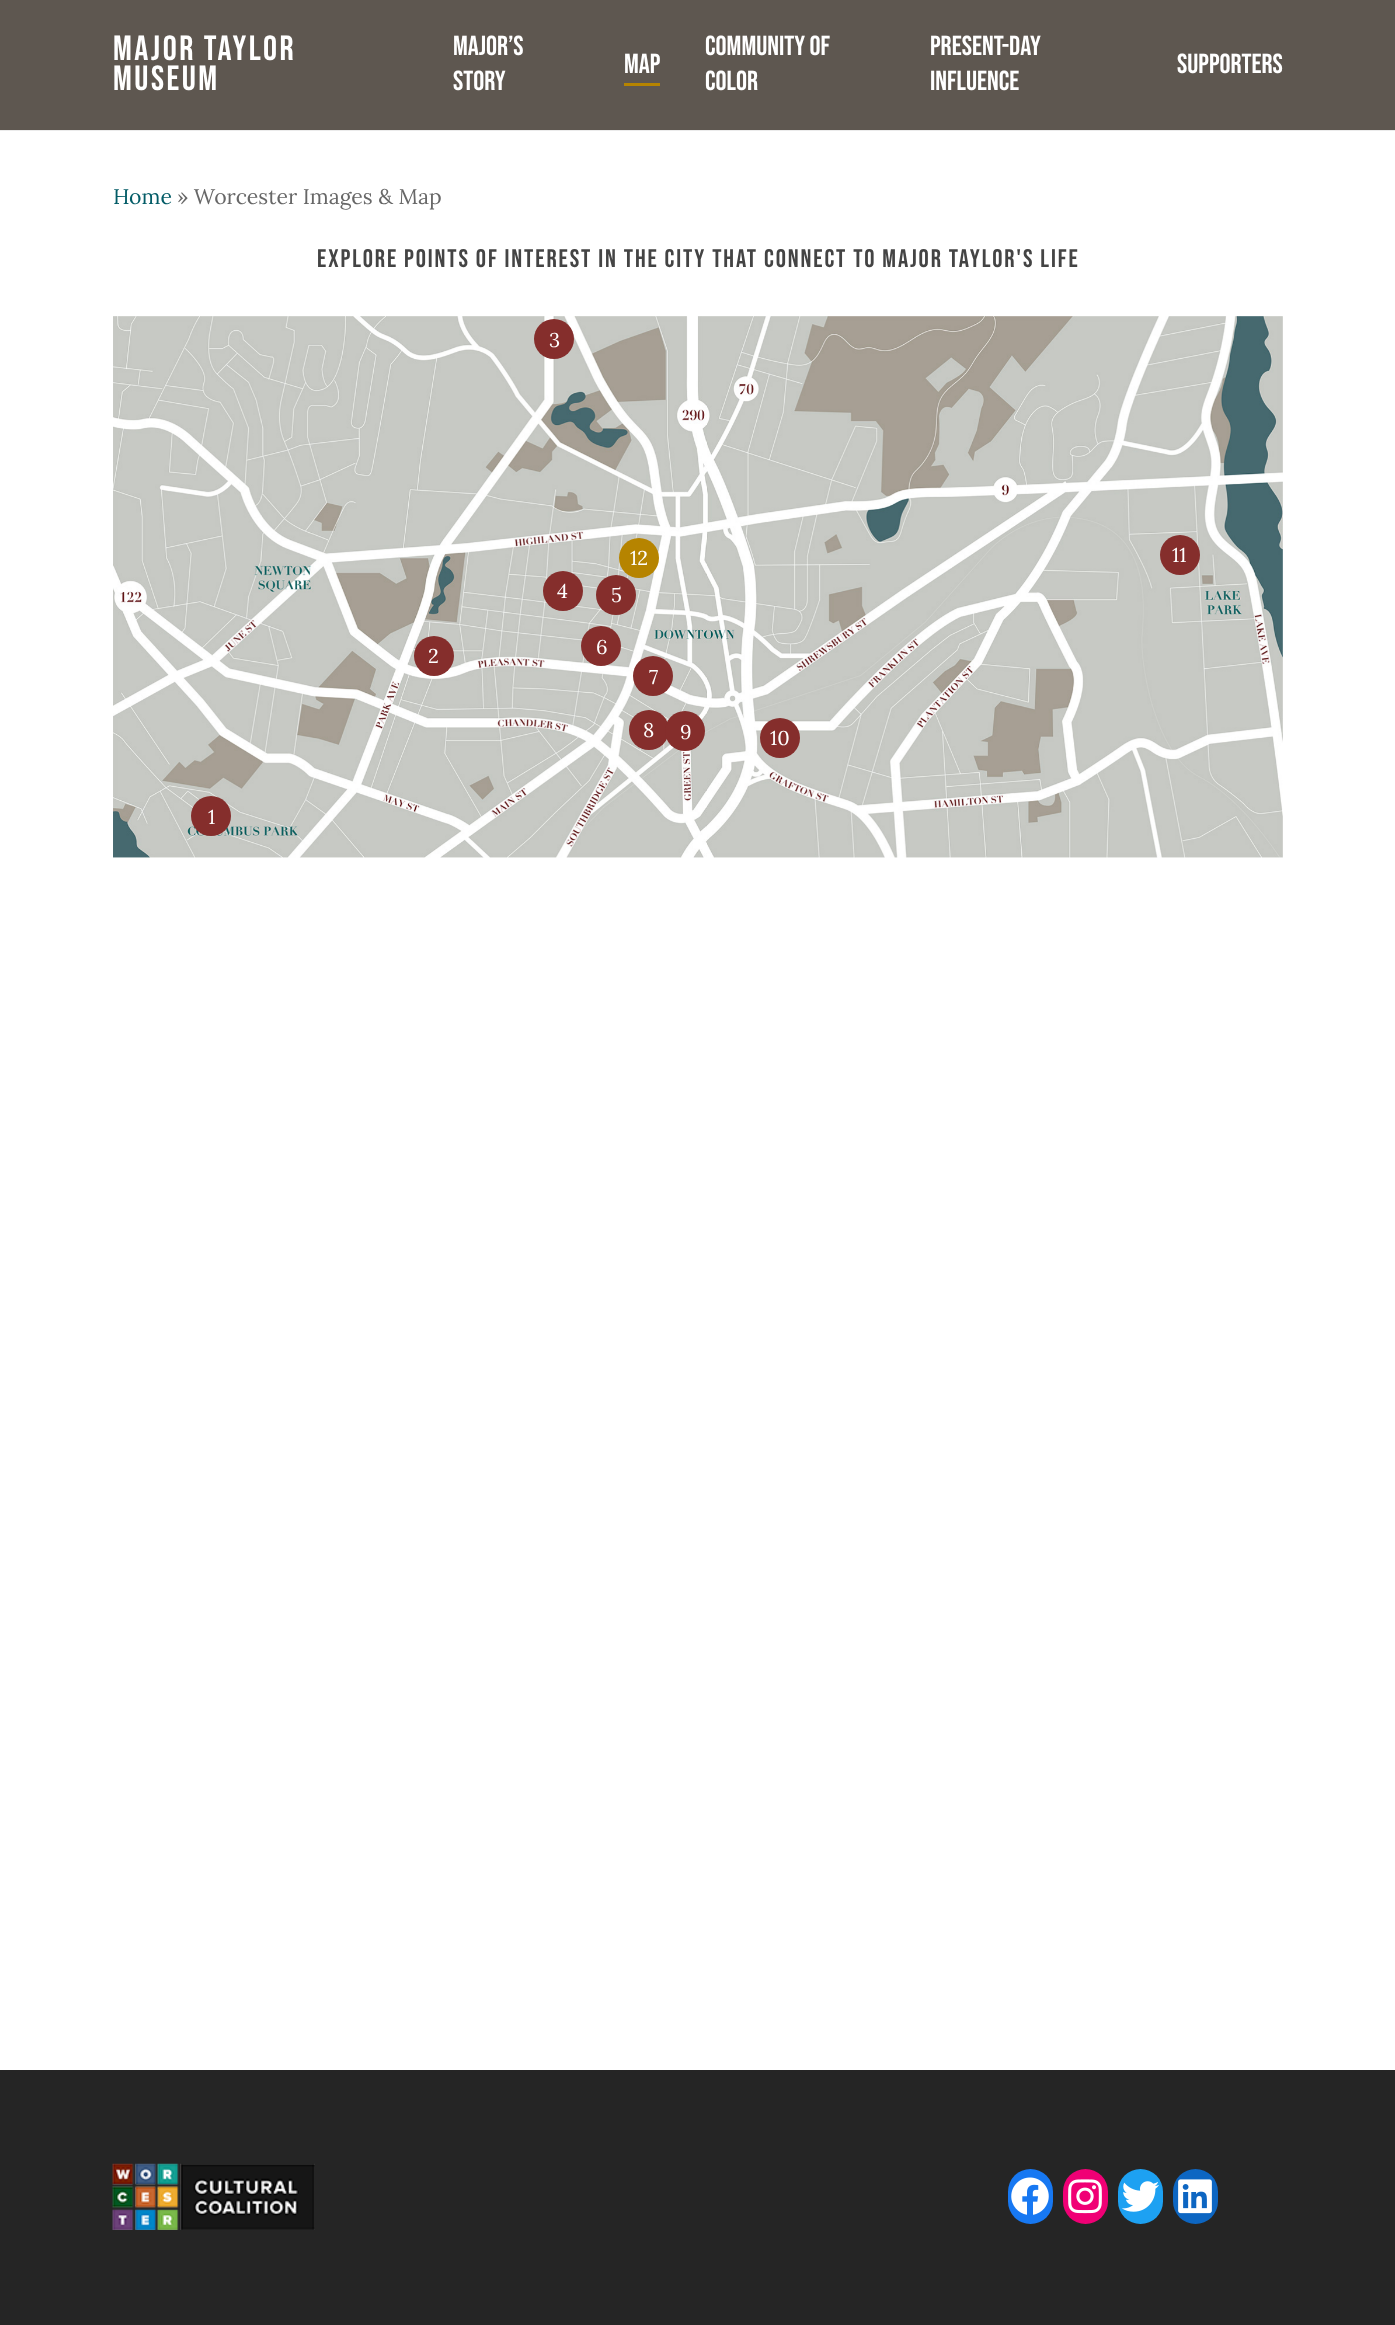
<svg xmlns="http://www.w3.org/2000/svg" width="1395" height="2325">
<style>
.a{font:35px Bebas Neue;letter-spacing:2.5px;fill:#fff}
.b{font:27.5px Bebas Neue;fill:#fff}
.c{font:21.25px Lora;fill:#035c67}
.d{font:21.25px Lora;fill:#676767}
.e{font:25.5px Bebas Neue;letter-spacing:1.88px;fill:#444}
.f{font:20px Lora;fill:#fff}
</style>
<rect width="100%" height="100%" fill="#fff"/>
<path fill="#5e5750" d="M0 0h1395v130H0z"/>
<path fill="#ebebeb" d="M0 130h1395v1H0z"/>
<path fill="#b68400" d="M624 83h36v3H624z"/>
<image href="1.png" x="113" y="316" width="1170" height="542"/>
<circle fill="#852e2c" cx="554" cy="339" r="20"/>
<circle fill="#852e2c" cx="616" cy="595" r="20"/>
<circle fill="#b68400" cx="639" cy="558" r="20"/>
<circle fill="#852e2c" cx="1180" cy="555" r="20"/>
<circle fill="#852e2c" cx="563" cy="591" r="20"/>
<circle fill="#852e2c" cx="434" cy="656" r="20"/>
<circle fill="#852e2c" cx="601" cy="646" r="20"/>
<circle fill="#852e2c" cx="653" cy="676" r="20"/>
<circle fill="#852e2c" cx="649" cy="730" r="20"/>
<circle fill="#852e2c" cx="685" cy="731" r="20"/>
<circle fill="#852e2c" cx="780" cy="738" r="20"/>
<circle fill="#852e2c" cx="211" cy="816" r="20"/>
<path fill="#252525" d="M0 2070h1395v255H0z"/>
<image href="2.png" x="112" y="2163" width="203" height="67"/>
<rect fill="#1778f2" x="1008" y="2169" width="45" height="55" rx="22.5"/>
<image href="3.png" x="1011" y="2177" width="38" height="38"/>
<rect fill="#f00075" x="1063" y="2169" width="45" height="55" rx="22.5"/>
<image href="4.png" x="1068" y="2179" width="34" height="35"/>
<rect fill="#1da1f2" x="1118" y="2169" width="45" height="55" rx="22.5"/>
<image href="5.png" x="1121" y="2181" width="38" height="31"/>
<rect fill="#0d66c2" x="1173" y="2169" width="45" height="55" rx="22.5"/>
<image href="6.png" x="1178" y="2179" width="34" height="35"/>
<text class="a" x="113" y="60">MAJOR TAYLOR</text>
<text class="a" x="113" y="90">MUSEUM</text>
<text class="b" x="453" y="55">Major’s</text>
<text class="b" x="453" y="90">Story</text>
<text class="b" x="624" y="73">Map</text>
<text class="b" x="705" y="55">Community of</text>
<text class="b" x="705" y="90">Color</text>
<text class="b" x="930" y="55">Present-day</text>
<text class="b" x="930" y="90">Influence</text>
<text class="b" x="1177" y="73">Supporters</text>
<text class="c" x="113" y="204">Home</text>
<text class="d" x="177" y="204">» Worcester Images &amp; Map</text>
<text class="e" x="317" y="267">EXPLORE POINTS OF INTEREST IN THE CITY THAT CONNECT TO MAJOR TAYLOR'S LIFE</text>
<text class="f" x="549" y="347">3</text>
<text class="f" x="630" y="565">12</text>
<text class="f" x="1172" y="562">11</text>
<text class="f" x="557" y="598">4</text>
<text class="f" x="611" y="602">5</text>
<text class="f" x="428" y="663">2</text>
<text class="f" x="596" y="654">6</text>
<text class="f" x="649" y="684">7</text>
<text class="f" x="643" y="737">8</text>
<text class="f" x="680" y="739">9</text>
<text class="f" x="770" y="745">10</text>
<text class="f" x="208" y="824">1</text>
</svg>
